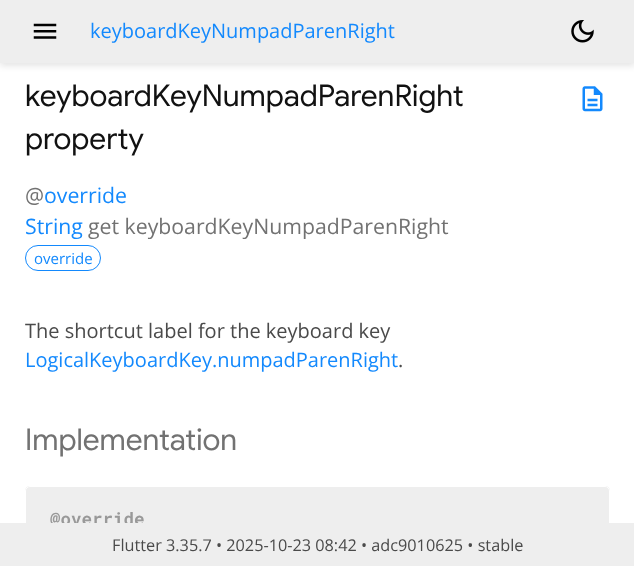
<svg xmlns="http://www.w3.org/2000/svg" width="634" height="566">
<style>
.a{font:20px Open Sans;fill:#1389fd}
.b{font:30px Google Sans;fill:#111}
.c{font:21.25px Open Sans;fill:#727272}
.d{font:21.25px Open Sans;fill:#1389fd}
.e{font:15px Open Sans;fill:#1389fd}
.f{font:20px Open Sans;fill:#4a4a4a}
.g{font:30px Google Sans;fill:#727272}
.h{font:bold 17.5px Roboto Mono;fill:#999}
.i{font:16.25px Open Sans;fill:#4a4a4a}
</style>
<defs>
<clipPath id="clip1"><path d="M0 63h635v460H0z"/></clipPath>
</defs>
<rect width="100%" height="100%" fill="#fff"/>
<path fill="#0000001a" filter="blur(3px)" d="M0 4h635v62H0z"/>
<path fill="#eee" d="M0 0h634v63H0z"/>
<image href="1.png" x="33" y="23" width="24" height="16"/>
<image href="2.png" x="571" y="20" width="23" height="23"/>
<image href="3.png" x="582" y="86" width="21" height="26"/>
<rect fill="none" stroke="#1389fd" x="25.5" y="245.5" width="75" height="25" rx="12.5"/>
<path fill="#eee" d="M30 486h575c3 0 5 2 5 5v32h-585v-32c0-3 2-5 5-5z"/>
<path fill="#eee" d="M0 523h634v43H0z"/>
<g clip-path="url(#clip1)">
<rect fill="none" stroke="#fff" x="25.5" y="486.5" width="584" height="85" rx="4.5"/>
</g>
<text class="a" x="90" y="38">keyboardKeyNumpadParenRight</text>
<text class="b" x="25" y="106">keyboardKeyNumpadParenRight</text>
<text class="b" x="25" y="149">property</text>
<text class="c" x="25" y="203">@</text>
<text class="d" x="44" y="203">override</text>
<text class="d" x="25" y="234">String</text>
<text class="c" x="88" y="234">get keyboardKeyNumpadParenRight</text>
<text class="e" x="34" y="264">override</text>
<text class="f" x="25" y="338">The shortcut label for the keyboard key</text>
<text class="a" x="25" y="367">LogicalKeyboardKey.numpadParenRight</text>
<text class="f" x="398" y="367">.</text>
<text class="g" x="25" y="450">Implementation</text>
<g clip-path="url(#clip1)">
<text class="h" x="50" y="525">@override</text>
</g>
<text class="i" x="112" y="551">Flutter 3.35.7 • 2025-10-23 08:42 • adc9010625 • stable</text>
</svg>
